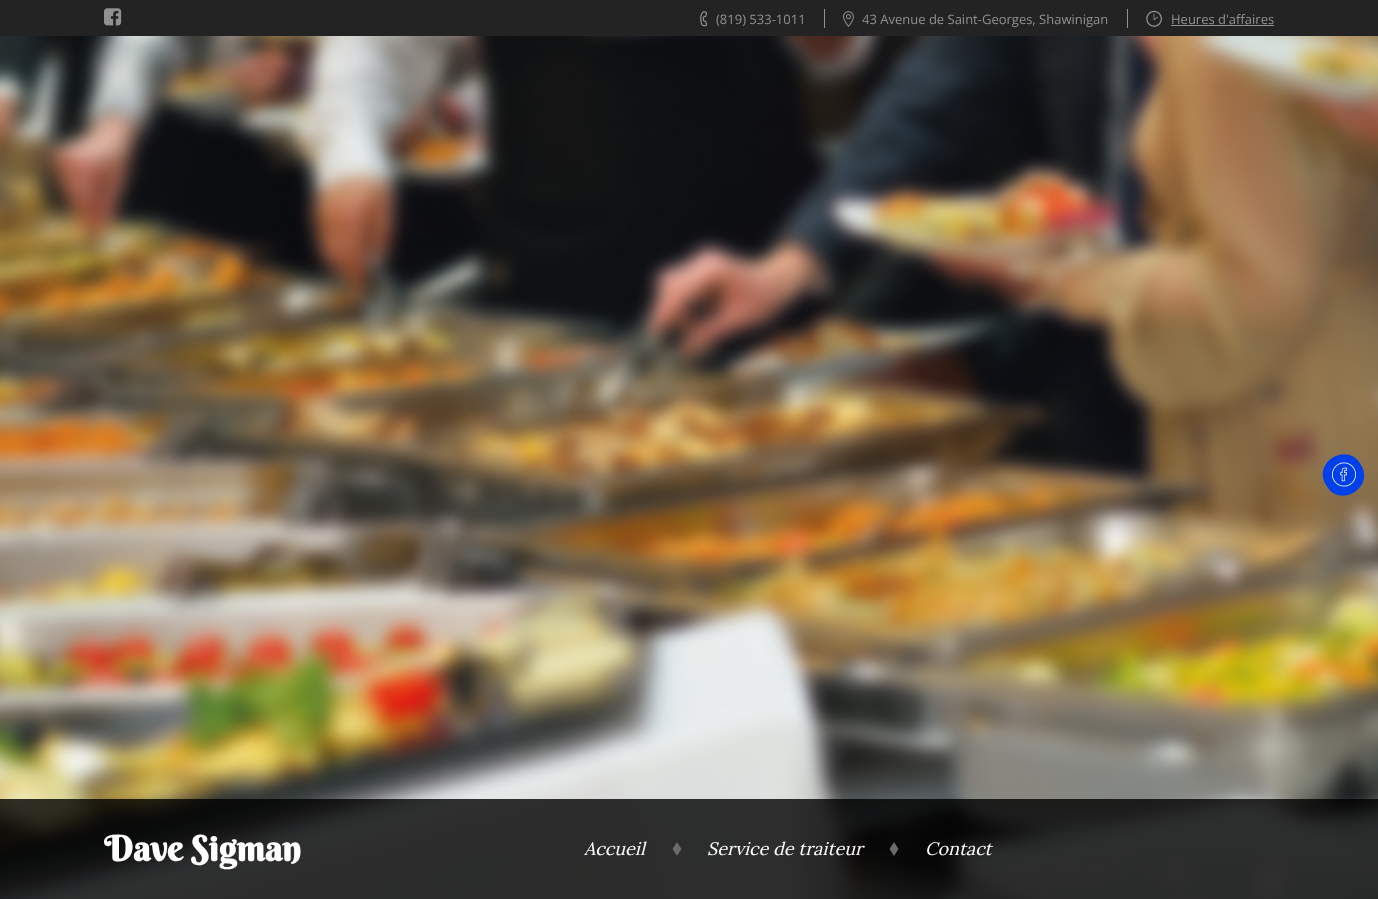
<svg xmlns="http://www.w3.org/2000/svg" width="1378" height="899">
<style>
.a{font:13px Open Sans;fill:#919191}
.b{font:bold 35px Berkshire Swash;fill:#fff}
.c{font:italic 18px Lora;fill:#fff}
</style>
<rect width="100%" height="100%" fill="#232323"/>
<image href="1.png" x="104" y="8" width="18" height="18"/>
<image href="2.png" x="700" y="11" width="8" height="16"/>
<path fill="#919191" d="M824 9h1v19H824z"/>
<image href="3.png" x="843" y="11" width="11" height="16"/>
<path fill="#919191" d="M1127 9h1v19H1127z"/>
<image href="4.png" x="1146" y="10" width="16" height="17"/>
<path fill="#919191" d="M1171 25h103v1H1171z"/>
<image href="5.png" x="0" y="36" width="1378" height="863"/>
<path fill="#000000cc" d="M0 799h1378v100H0z"/>
<path fill="#6b6b6b" d="M677 842l-4.5 7l4.5 7l4.5-7z"/>
<path fill="#6b6b6b" d="M894 842l-4.5 7l4.5 7l4.5-7z"/>
<path fill="#0040eb" d="M1361 465c14 23-22 44-35 20c-14-23 22-44 35-20z"/>
<image href="6.png" x="1332" y="462" width="24" height="25"/>
<text class="a" x="716" y="24">(819) 533-1011</text>
<text class="a" x="862" y="24">43 Avenue de Saint-Georges, Shawinigan</text>
<text class="a" x="1171" y="24">Heures d'affaires</text>
<text class="b" x="104" y="861">Dave Sigman</text>
<text class="c" x="584" y="855">Accueil</text>
<text class="c" x="707" y="855">Service de traiteur</text>
<text class="c" x="925" y="855">Contact</text>
</svg>
